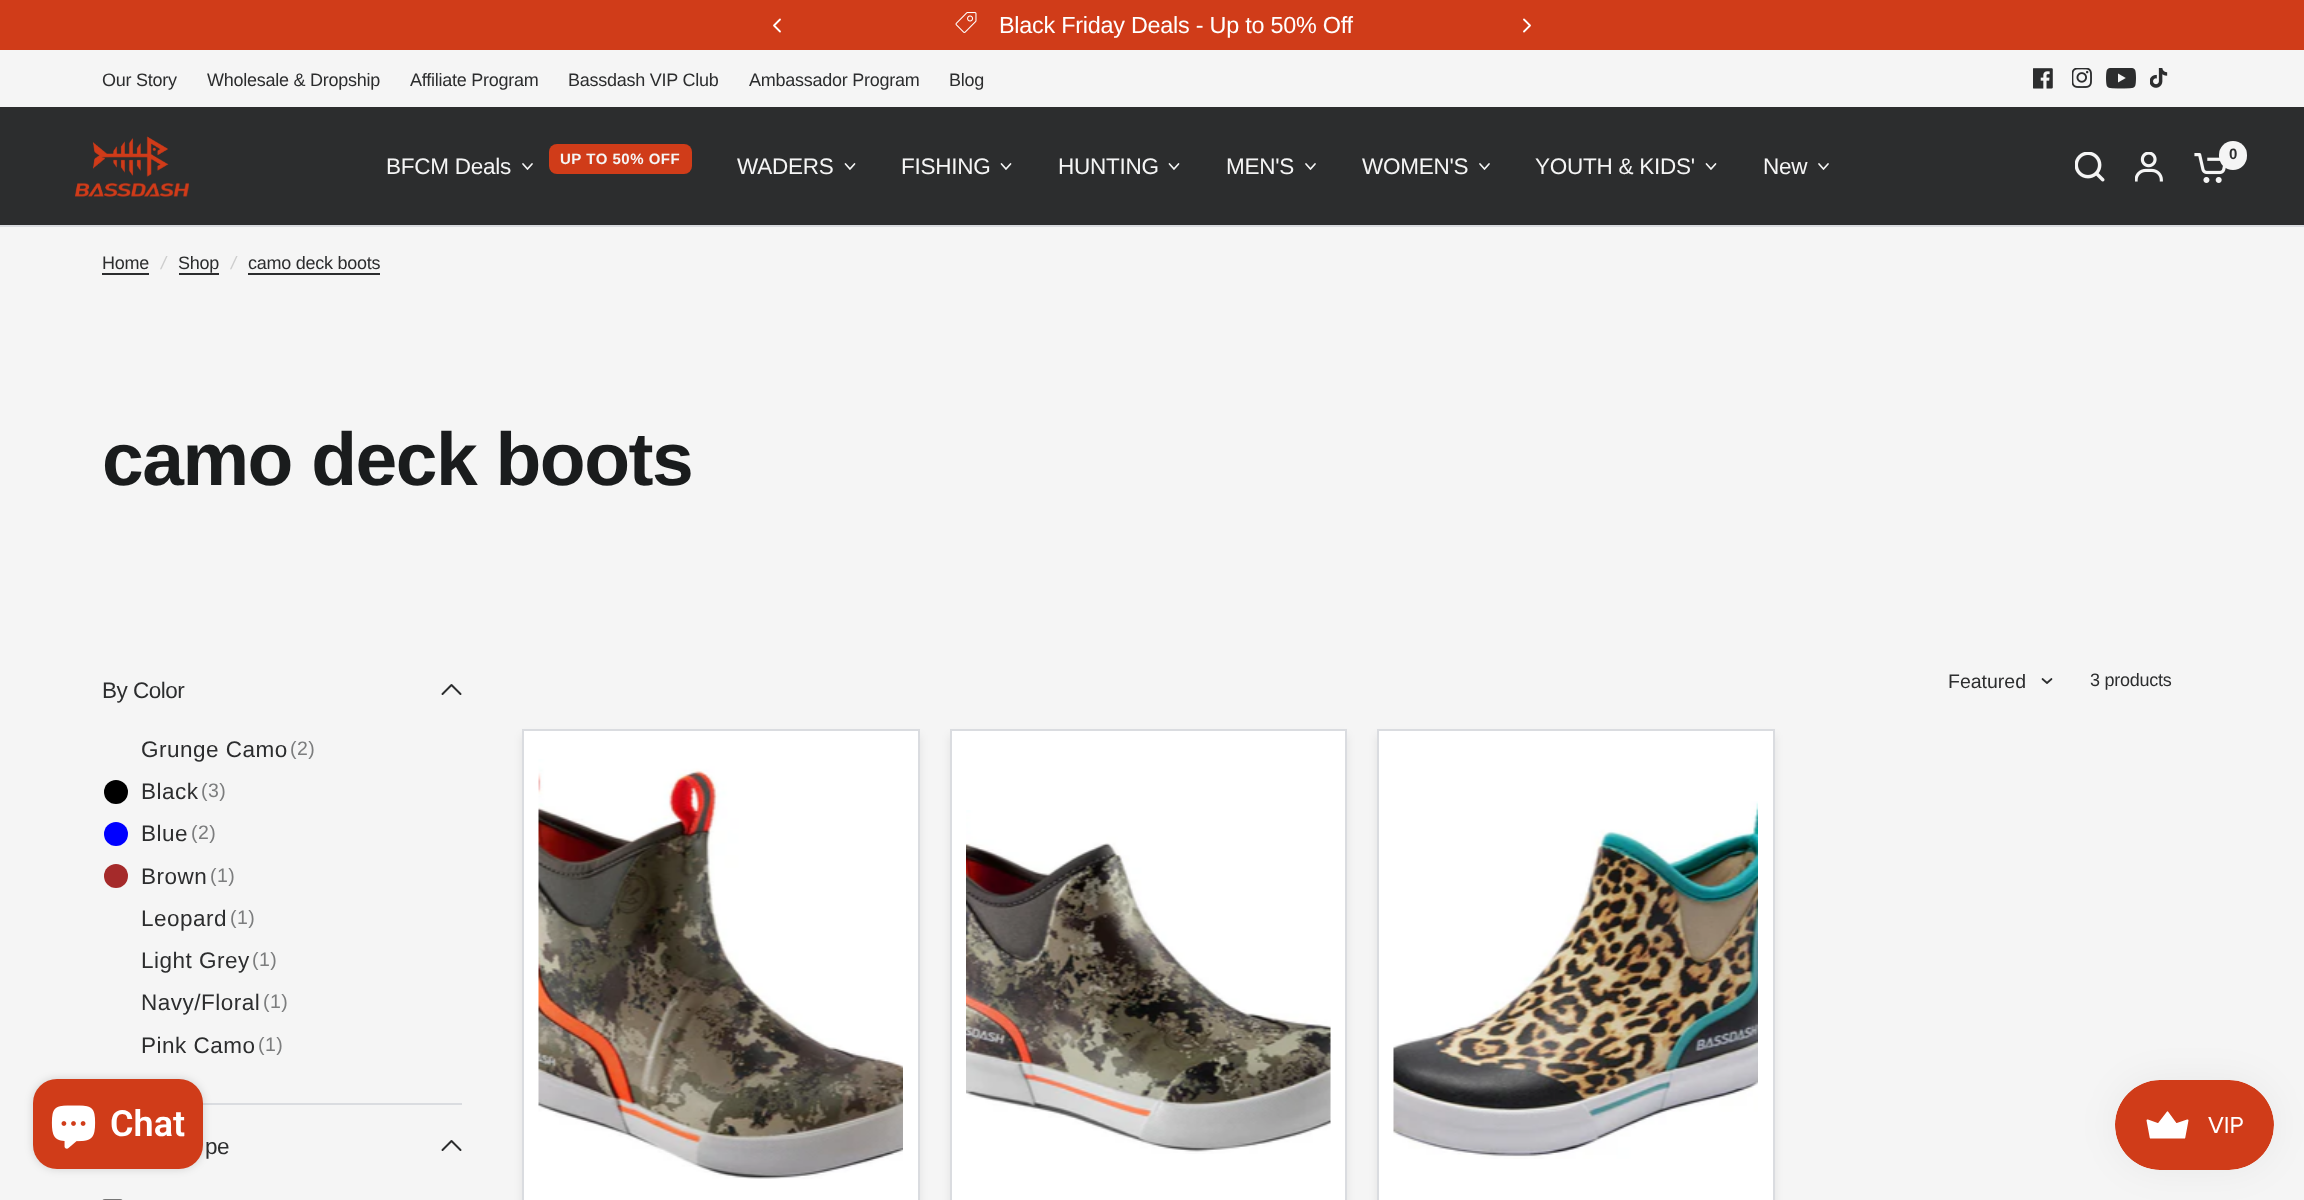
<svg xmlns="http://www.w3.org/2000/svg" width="2304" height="1200">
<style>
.a{font:23.4px Liberation Sans;letter-spacing:-0.25px;fill:#fff}
.b{font:18px Liberation Sans;letter-spacing:-0.25px;fill:#2c2d2e}
.c{font:22.5px Liberation Sans;letter-spacing:-0.25px;fill:#f5f5f5}
.d{font:bold 15px Liberation Sans;letter-spacing:0.5px;fill:#f5f5f5}
.e{font:bold 15px Liberation Sans;letter-spacing:-0.25px;fill:#2c2d2e}
.f{font:italic 18px Liberation Sans;letter-spacing:-0.25px;fill:#cdcdcd}
.g{font:bold 75px Liberation Sans;letter-spacing:-1.5px;fill:#1a1c1d}
.h{font:22.5px Liberation Sans;letter-spacing:-0.5px;fill:#2c2d2e}
.i{font:22.5px Liberation Sans;letter-spacing:0.5px;fill:#2c2d2e}
.j{font:19.5px Liberation Sans;letter-spacing:0.5px;fill:#7c7d7e}
.k{font:19.5px Liberation Sans;fill:#2c2d2e}
.l{font:600 36px Roboto;fill:#fff}
</style>
<rect width="100%" height="100%" fill="#f5f5f5"/>
<path fill="#d03c19" d="M0 0h2304v50H0z"/>
<path fill="none" stroke="#fff" stroke-width="1.8" stroke-linecap="round" stroke-linejoin="round" d="M780 19.5l-6 6l6 6"/>
<image href="1.png" x="955" y="12" width="22" height="21"/>
<path fill="none" stroke="#fff" stroke-width="1.8" stroke-linecap="round" stroke-linejoin="round" d="M1524 19.5l6 6l-6 6"/>
<image href="2.png" x="2033" y="68" width="20" height="21"/>
<image href="3.png" x="2072" y="68" width="20" height="20"/>
<image href="4.png" x="2106" y="68" width="30" height="21"/>
<image href="5.png" x="2150" y="68" width="18" height="20"/>
<path fill="#2c2d2e" d="M0 107h2304v118H0z"/>
<image href="6.png" x="75" y="136" width="114" height="61"/>
<path fill="none" stroke="#f5f5f5" stroke-width="1.7" stroke-linecap="round" stroke-linejoin="round" d="M532 164l-4.5 5l-4.5-5"/>
<rect fill="#d03c19" x="549" y="144" width="143" height="30" rx="8"/>
<path fill="none" stroke="#f5f5f5" stroke-width="1.7" stroke-linecap="round" stroke-linejoin="round" d="M854.5 164l-4.5 5l-4.5-5"/>
<path fill="none" stroke="#f5f5f5" stroke-width="1.7" stroke-linecap="round" stroke-linejoin="round" d="M1010.5 164l-4.5 5l-4.5-5"/>
<path fill="none" stroke="#f5f5f5" stroke-width="1.7" stroke-linecap="round" stroke-linejoin="round" d="M1178.5 164l-4.5 5l-4.5-5"/>
<path fill="none" stroke="#f5f5f5" stroke-width="1.7" stroke-linecap="round" stroke-linejoin="round" d="M1315 164l-4.5 5l-4.5-5"/>
<path fill="none" stroke="#f5f5f5" stroke-width="1.7" stroke-linecap="round" stroke-linejoin="round" d="M1489 164l-4.5 5l-4.5-5"/>
<path fill="none" stroke="#f5f5f5" stroke-width="1.7" stroke-linecap="round" stroke-linejoin="round" d="M1715.5 164l-4.5 5l-4.5-5"/>
<path fill="none" stroke="#f5f5f5" stroke-width="1.7" stroke-linecap="round" stroke-linejoin="round" d="M1828 164l-4.5 5l-4.5-5"/>
<image href="7.png" x="2075" y="152" width="30" height="30"/>
<image href="8.png" x="2135" y="152" width="28" height="30"/>
<image href="9.png" x="2194" y="153" width="32" height="30"/>
<rect fill="#f5f5f5" x="2219" y="141" width="28" height="29" rx="14"/>
<path fill="#dadce0" d="M0 225h2304v2H0z"/>
<path fill="#2c2d2e" d="M102 273h47v2H102z"/>
<path fill="#2c2d2e" d="M179 273h40v2H179z"/>
<path fill="#2c2d2e" d="M248 273h132v2H248z"/>
<path fill="#dadce0" d="M203 1103h259v2H203z"/>
<path fill="none" stroke="#2c2d2e" stroke-width="2" stroke-linecap="round" stroke-linejoin="round" d="M460.5 694l-9-9l-9 9"/>
<circle fill="#000" cx="116" cy="792" r="12"/>
<circle fill="#00f" cx="116" cy="834" r="12"/>
<circle fill="#a52a2a" cx="116" cy="876" r="12"/>
<path fill="none" stroke="#2c2d2e" stroke-width="2" stroke-linecap="round" stroke-linejoin="round" d="M460.5 1150l-9-9l-9 9"/>
<rect fill="none" stroke="#767676" stroke-width="2" x="103" y="1200" width="19" height="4" rx="2"/>
<path fill="none" stroke="#2c2d2e" stroke-width="1.7" stroke-linecap="round" stroke-linejoin="round" d="M2051.5 679l-4.5 4l-4.5-4"/>
<path fill="#00000014" filter="blur(4.5px)" d="M522 735h398v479H522z"/>
<path fill="#fff" stroke="#dadce0" stroke-width="2" d="M523 730h396v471H523z"/>
<image href="10.png" x="538" y="759" width="365" height="420"/>
<path fill="#00000014" filter="blur(4.5px)" d="M950 735h397v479H950z"/>
<path fill="#fff" stroke="#dadce0" stroke-width="2" d="M951 730h395v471H951z"/>
<image href="11.png" x="966" y="810" width="365" height="344"/>
<path fill="#00000014" filter="blur(4.5px)" d="M1377 735h398v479H1377z"/>
<path fill="#fff" stroke="#dadce0" stroke-width="2" d="M1378 730h396v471H1378z"/>
<image href="12.png" x="1393" y="801" width="365" height="358"/>
<rect fill="#00000026" filter="blur(4px)" x="33" y="1079" width="170" height="90" rx="24"/>
<rect fill="#d03c19" x="33" y="1079" width="170" height="90" rx="24"/>
<image href="13.png" x="51" y="1105" width="45" height="44"/>
<rect fill="#0000000d" filter="blur(19px)" x="2115" y="1080" width="159" height="90" rx="45"/>
<image href="14.png" x="2115" y="1080" width="159" height="90"/>
<text class="a" x="999" y="33">Black Friday Deals - Up to 50% Off</text>
<text class="b" x="102" y="86">Our Story</text>
<text class="b" x="207" y="86">Wholesale &amp; Dropship</text>
<text class="b" x="410" y="86">Affiliate Program</text>
<text class="b" x="568" y="86">Bassdash VIP Club</text>
<text class="b" x="749" y="86">Ambassador Program</text>
<text class="b" x="949" y="86">Blog</text>
<text class="c" x="386" y="174">BFCM Deals</text>
<text class="d" x="560" y="164">UP TO 50% OFF</text>
<text class="c" x="737" y="174">WADERS</text>
<text class="c" x="901" y="174">FISHING</text>
<text class="c" x="1058" y="174">HUNTING</text>
<text class="c" x="1226" y="174">MEN'S</text>
<text class="c" x="1362" y="174">WOMEN'S</text>
<text class="c" x="1535" y="174">YOUTH &amp; KIDS'</text>
<text class="c" x="1763" y="174">New</text>
<text class="e" x="2229" y="159">0</text>
<text class="b" x="102" y="269">Home</text>
<text class="f" x="161" y="269">/</text>
<text class="b" x="178" y="269">Shop</text>
<text class="f" x="231" y="269">/</text>
<text class="b" x="248" y="269">camo deck boots</text>
<text class="g" x="102" y="485">camo deck boots</text>
<text class="h" x="102" y="698">By Color</text>
<text class="i" x="141" y="757">Grunge Camo</text>
<text class="j" x="290" y="755">(2)</text>
<text class="i" x="141" y="799">Black</text>
<text class="j" x="201" y="797">(3)</text>
<text class="i" x="141" y="841">Blue</text>
<text class="j" x="191" y="839">(2)</text>
<text class="i" x="141" y="884">Brown</text>
<text class="j" x="210" y="882">(1)</text>
<text class="i" x="141" y="926">Leopard</text>
<text class="j" x="230" y="924">(1)</text>
<text class="i" x="141" y="968">Light Grey</text>
<text class="j" x="252" y="966">(1)</text>
<text class="i" x="141" y="1010">Navy/Floral</text>
<text class="j" x="263" y="1008">(1)</text>
<text class="i" x="141" y="1053">Pink Camo</text>
<text class="j" x="258" y="1051">(1)</text>
<text class="h" x="205" y="1154">pe</text>
<text class="k" x="1948" y="688">Featured</text>
<text class="b" x="2090" y="686">3 products</text>
<text class="l" x="110" y="1136">Chat</text>
</svg>
